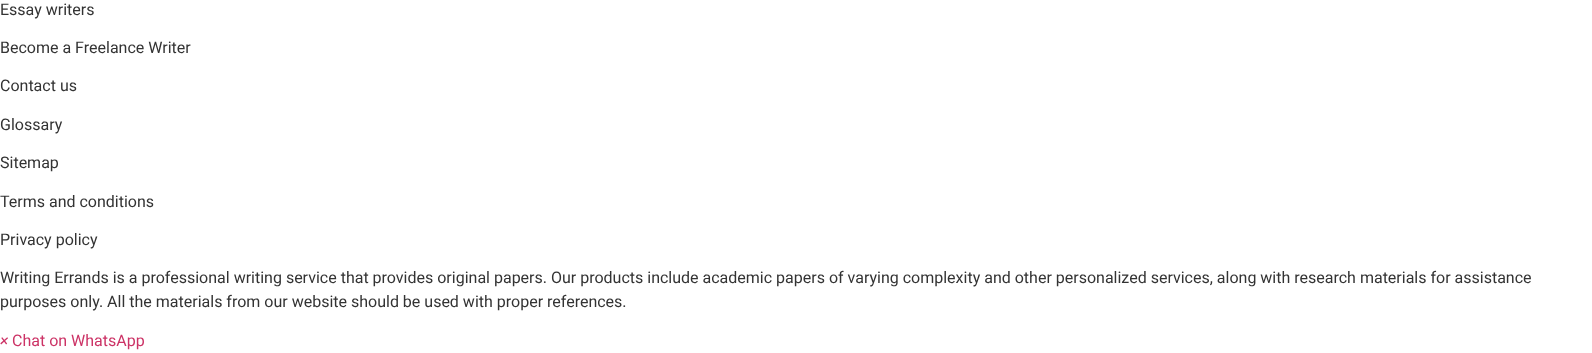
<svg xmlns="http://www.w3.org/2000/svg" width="1592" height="353">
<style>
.a{font:16px Roboto;fill:#333}
.b{font:italic 16px Roboto;fill:#c36}
.c{font:16px Roboto;fill:#c36}
</style>
<rect width="100%" height="100%" fill="#fff"/>
<text class="a" x="0" y="15">Essay writers</text>
<text class="a" x="0" y="53">Become a Freelance Writer</text>
<text class="a" x="0" y="91">Contact us</text>
<text class="a" x="0" y="130">Glossary</text>
<text class="a" x="0" y="168">Sitemap</text>
<text class="a" x="0" y="207">Terms and conditions</text>
<text class="a" x="0" y="245">Privacy policy</text>
<text class="a" x="0" y="283">Writing Errands is a professional writing service that provides original papers. Our products include academic papers of varying complexity and other personalized services, along with research materials for assistance</text>
<text class="a" x="0" y="307">purposes only. All the materials from our website should be used with proper references.</text>
<text class="b" x="0" y="346">×</text>
<text class="c" x="12" y="346">Chat on WhatsApp</text>
</svg>
